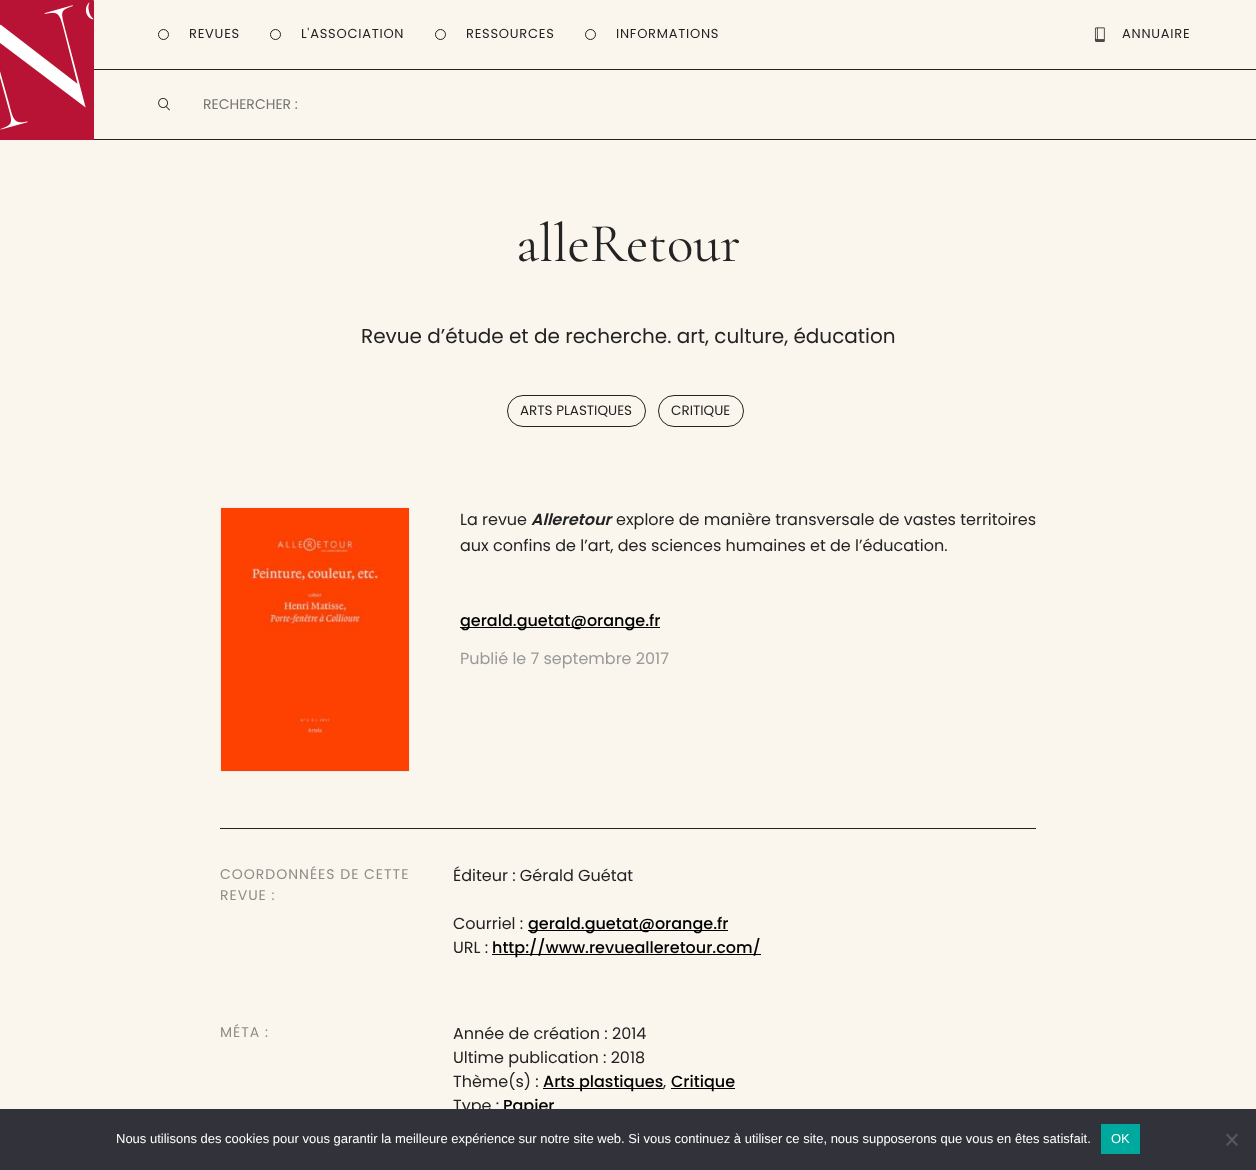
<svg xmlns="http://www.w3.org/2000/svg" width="1256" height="1170">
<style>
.a{font:13px Poppins;letter-spacing:0.75px;fill:#232323}
.b{font:14px Poppins;fill:#757575}
.c{font:300 55px Cormorant Garamond;fill:#232323}
.d{font:20px Poppins;fill:#232323}
.e{font:13.5px Poppins;fill:#232323}
.f{font:16px Poppins;fill:#232323}
.g{font:italic 600 16px Poppins;fill:#232323}
.h{font:500 16px Poppins;fill:#000}
.i{font:16px Poppins;fill:#999}
.j{font:14px Poppins;letter-spacing:1px;fill:#8f8c88}
.k{font:13px Liberation Sans;fill:#fff}
</style>
<rect width="100%" height="100%" fill="#faf5ed"/>
<path fill="#232323" d="M94 139h1162v1H94z"/>
<path fill="#232323" d="M93 69h1163v1H93z"/>
<image href="1.png" x="0" y="0" width="94" height="140"/>
<circle fill="none" stroke="#232323" cx="163.5" cy="34.5" r="5"/>
<circle fill="none" stroke="#232323" cx="275.5" cy="34.5" r="5"/>
<circle fill="none" stroke="#232323" cx="440.5" cy="34.5" r="5"/>
<circle fill="none" stroke="#232323" cx="590.5" cy="34.5" r="5"/>
<image href="2.png" x="1094" y="27" width="11" height="15"/>
<image href="3.png" x="158" y="98" width="12" height="13"/>
<rect fill="none" stroke="#232323" x="507.5" y="395.5" width="138" height="31" rx="15.5"/>
<rect fill="none" stroke="#232323" x="658.5" y="395.5" width="85" height="31" rx="15.5"/>
<path fill="none" stroke="#eee" d="M220.5 507.5h189v264H220.5z"/>
<image href="4.png" x="221" y="508" width="188" height="263"/>
<path fill="#000" d="M460 627h200v1H460z"/>
<path fill="#242424" d="M220 828h816v1H220z"/>
<path fill="#000" d="M528 930h200v1H528z"/>
<path fill="#000" d="M492 954h269v1H492z"/>
<path fill="#000" d="M543 1088h120v1H543z"/>
<path fill="#000" d="M671 1088h64v1H671z"/>
<text class="a" x="189" y="38">REVUES</text>
<text class="a" x="301" y="38">L'ASSOCIATION</text>
<text class="a" x="466" y="38">RESSOURCES</text>
<text class="a" x="616" y="38">INFORMATIONS</text>
<text class="a" x="1122" y="38">ANNUAIRE</text>
<text class="b" x="203" y="109">RECHERCHER :</text>
<text class="c" x="516" y="261">alleRetour</text>
<text class="d" x="361" y="343">Revue d’étude et de recherche. art, culture, éducation</text>
<text class="e" x="520" y="415">ARTS PLASTIQUES</text>
<text class="e" x="671" y="415">CRITIQUE</text>
<text class="f" x="460" y="525">La revue</text>
<text class="g" x="531" y="525">Alleretour</text>
<text class="f" x="616" y="525">explore de manière transversale de vastes territoires</text>
<text class="f" x="460" y="551">aux confins de l’art, des sciences humaines et de l’éducation.</text>
<text class="h" x="460" y="626">gerald.guetat@orange.fr</text>
<text class="i" x="460" y="664">Publié le 7 septembre 2017</text>
<text class="j" x="220" y="879">COORDONNÉES DE CETTE</text>
<text class="j" x="220" y="900">REVUE :</text>
<text class="f" x="453" y="881">Éditeur : Gérald Guétat</text>
<text class="f" x="453" y="929">Courriel :</text>
<text class="h" x="528" y="929">gerald.guetat@orange.fr</text>
<text class="f" x="453" y="953">URL :</text>
<text class="h" x="492" y="953">http://www.revuealleretour.com/</text>
<text class="j" x="220" y="1037">MÉTA :</text>
<text class="f" x="453" y="1039">Année de création : 2014</text>
<text class="f" x="453" y="1063">Ultime publication : 2018</text>
<text class="f" x="453" y="1087">Thème(s) :</text>
<text class="h" x="543" y="1087">Arts plastiques</text>
<text class="f" x="663" y="1087">,</text>
<text class="h" x="671" y="1087">Critique</text>
<text class="f" x="453" y="1111">Type :</text>
<text class="h" x="503" y="1111">Papier</text>
<path fill="#32323a" d="M0 1109h1256v61H0z"/>
<text class="k" x="116" y="1143">Nous utilisons des cookies pour vous garantir la meilleure expérience sur notre site web. Si vous continuez à utiliser ce site, nous supposerons que vous en êtes satisfait.</text>
<path fill="#00a99d" d="M1101 1124h39v30H1101z"/>
<text class="k" x="1111" y="1143">OK</text>
<path fill="#59595d" d="M1236.5 1133.5l1.5 1.5l-10.5 11l-1.5-1.5z"/>
<path fill="#59595d" d="M1226 1135l1.5-1.5l10.5 11l-1.5 1.5z"/>
</svg>
